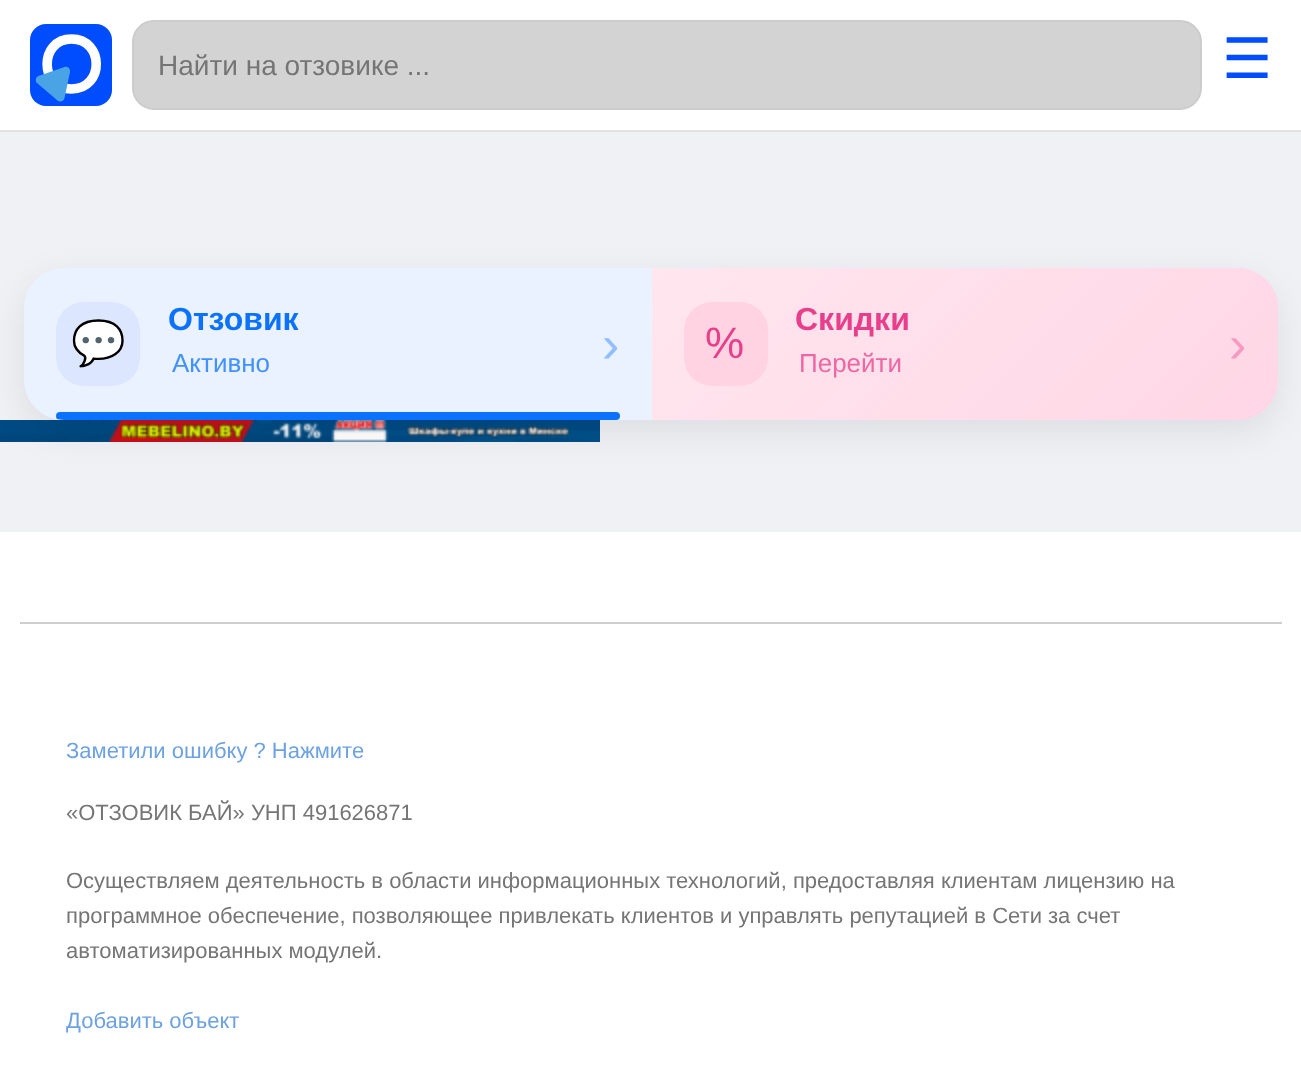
<svg xmlns="http://www.w3.org/2000/svg" width="1301" height="1068">
<style>
.a{font:28px Liberation Sans;fill:#757575}
.b{font:56px DejaVu Sans;fill:#004dff}
.c{font:44px Noto Color Emoji;fill:#0a72fd}
.d{font:bold 32px Liberation Sans;fill:#0a72fd}
.e{font:26px Liberation Sans;fill:#4292fe}
.f{font:52px Liberation Sans;fill:#90befe}
.g{font:44px Liberation Sans;fill:#e83e8c}
.h{font:bold 32px Liberation Sans;fill:#e83e8c}
.i{font:26px Liberation Sans;fill:#ee66a4}
.j{font:52px Liberation Sans;fill:#f69ac2}
.k{font:22px Liberation Sans;fill:#6da2e1}
.l{font:22px Liberation Sans;fill:#757575}
</style>
<defs>
<clipPath id="clip1"><rect x="24" y="268" width="1254" height="152" rx="40"/></clipPath>
<linearGradient id="g1" gradientUnits="userSpaceOnUse" x1="771" y1="150" x2="1160" y2="539"><stop offset="0" stop-color="#ffe6ef"/><stop offset="1" stop-color="#ffd6e5"/></linearGradient>
</defs>
<rect width="100%" height="100%" fill="#eff1f5"/>
<path fill="#fff" d="M0 0h1301v130H0z"/>
<path fill="#e1e1e1" d="M0 130h1301v2H0z"/>
<rect fill="#004dff" x="30" y="24" width="82" height="82" rx="16"/>
<path fill="none" stroke="#fff" stroke-width="9.6" d="M71.5 39c33 0 33 50 0 50c-32.5 0-32.5-50 0-50z"/>
<path fill="#4aa3e5" d="M64.5 67c3-1 6 1.5 5.5 5l-5.5 26c-.5 3.5-4.5 4.5-7 2.5l-20.5-17.5c-2-2-1.5-6 1.5-7z"/>
<rect fill="#d3d3d3" stroke="#ccc" stroke-width="2" x="133" y="21" width="1068" height="88" rx="21"/>
<image href="1.png" x="0" y="420" width="600" height="22"/>
<rect fill="#00000014" filter="blur(18px)" x="24" y="280" width="1254" height="152" rx="40"/>
<path fill="#eaf1ff" d="M64 268h588v152h-588c-22 0-40-18-40-40v-72c0-22 18-40 40-40z"/>
<rect fill="#dce7ff" x="56" y="302" width="84" height="84" rx="28"/>
<g clip-path="url(#clip1)">
<rect fill="#0a72fd" x="56" y="412" width="564" height="8" rx="4"/>
</g>
<path fill="url(#g1)" d="M652 268h586c22 0 40 18 40 40v72c0 22-18 40-40 40h-586z"/>
<rect fill="#ffd3e2" x="684" y="302" width="84" height="84" rx="28"/>
<path fill="#fff" d="M0 532h1301v536H0z"/>
<path fill="#cfcfcf" d="M20 622h1262v2H20z"/>
<text class="a" x="158" y="75">Найти на отзовике ...</text>
<text class="b" x="1222" y="78">☰</text>
<text class="c" x="71" y="358">💬</text>
<text class="d" x="168" y="330">Отзовик</text>
<text class="e" x="172" y="372">Активно</text>
<text class="f" x="602" y="362">›</text>
<text class="g" x="705" y="358">%</text>
<text class="h" x="795" y="330">Скидки</text>
<text class="i" x="799" y="372">Перейти</text>
<text class="j" x="1229" y="362">›</text>
<text class="k" x="66" y="758">Заметили ошибку ? Нажмите</text>
<text class="l" x="66" y="820">«ОТЗОВИК БАЙ» УНП 491626871</text>
<text class="l" x="66" y="888">Осуществляем деятельность в области информационных технологий, предоставляя клиентам лицензию на</text>
<text class="l" x="66" y="923">программное обеспечение, позволяющее привлекать клиентов и управлять репутацией в Сети за счет</text>
<text class="l" x="66" y="958">автоматизированных модулей.</text>
<text class="k" x="66" y="1028">Добавить объект</text>
</svg>
